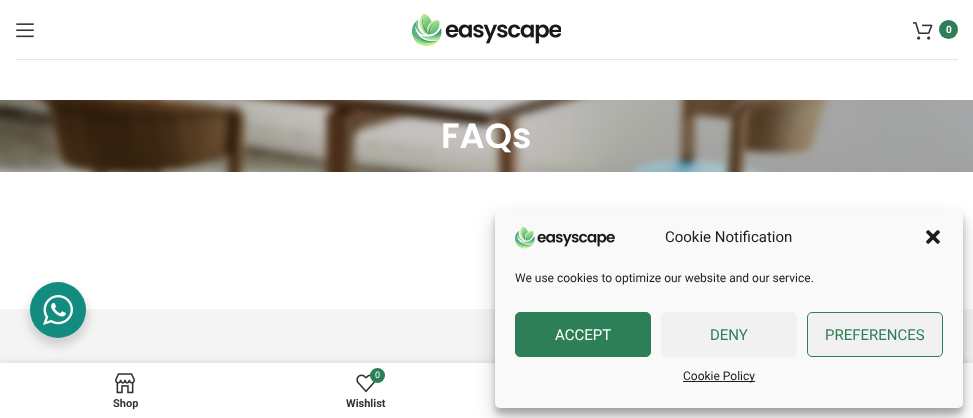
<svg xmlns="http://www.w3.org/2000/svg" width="973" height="418">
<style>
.a{font:bold 10px Roboto;fill:#fff}
.b{font:600 35px Poppins;fill:#fff}
.c{font:15px Roboto;fill:#191e23}
.d{font:12px Roboto;fill:#191e23}
.e{font:15px Roboto;fill:#fff}
.f{font:15px Roboto;fill:#2d7f58}
.g{font:bold 11px Roboto;fill:#333}
.h{font:9px Roboto;fill:#fff}
</style>
<rect width="100%" height="100%" fill="#fff"/>
<path fill="#e6e6e6" d="M15 59h943v1H15z"/>
<image href="1.png" x="16" y="23" width="18" height="15"/>
<image href="2.png" x="412" y="13" width="149" height="33"/>
<image href="3.png" x="913" y="22" width="20" height="18"/>
<circle fill="#2d7f58" cx="948.5" cy="29.5" r="9.5"/>
<image href="4.png" x="0" y="100" width="973" height="72"/>
<path fill="#f4f4f4" d="M0 309h973v54H0z"/>
<rect fill="#00000024" filter="blur(4px)" x="28" y="286" width="60" height="60" rx="30"/>
<circle fill="#128c7e" cx="58" cy="310" r="28"/>
<image href="5.png" x="43" y="295" width="30" height="30"/>
<path fill="#0000001f" filter="blur(4.5px)" d="M0 363h973v55H0z"/>
<path fill="#fff" d="M0 363h973v55H0z"/>
<rect fill="#0000003b" filter="blur(3px)" x="495" y="216" width="468" height="198" rx="5"/>
<rect fill="#00000030" filter="blur(10px)" x="495" y="220" width="468" height="198" rx="5"/>
<rect fill="#f9f9f9" x="495" y="210" width="468" height="198" rx="5"/>
<image href="6.png" x="515" y="226" width="100" height="23"/>
<image href="7.png" x="926" y="230" width="14" height="14"/>
<rect fill="#2d7f58" stroke="#2d7f58" x="515.5" y="312.5" width="135" height="44" rx="4.5"/>
<rect fill="#f1f1f1" x="661" y="312" width="136" height="45" rx="5"/>
<rect fill="#f1f1f1" stroke="#2d7f58" x="807.5" y="312.5" width="135" height="44" rx="4.5"/>
<path fill="#191e23" d="M683 381h72v1H683z"/>
<image href="8.png" x="115" y="373" width="20" height="21"/>
<image href="9.png" x="356" y="374" width="20" height="18"/>
<circle fill="#2d7f58" cx="377.5" cy="375.5" r="7.5"/>
<text class="a" x="946" y="33">0</text>
<text class="b" x="441" y="148">FAQs</text>
<text class="c" x="665" y="242">Cookie Notification</text>
<text class="d" x="515" y="282">We use cookies to optimize our website and our service.</text>
<text class="e" x="555" y="340">ACCEPT</text>
<text class="f" x="710" y="340">DENY</text>
<text class="f" x="825" y="340">PREFERENCES</text>
<text class="d" x="683" y="380">Cookie Policy</text>
<text class="g" x="113" y="407">Shop</text>
<text class="h" x="375" y="378">0</text>
<text class="g" x="346" y="407">Wishlist</text>
</svg>
